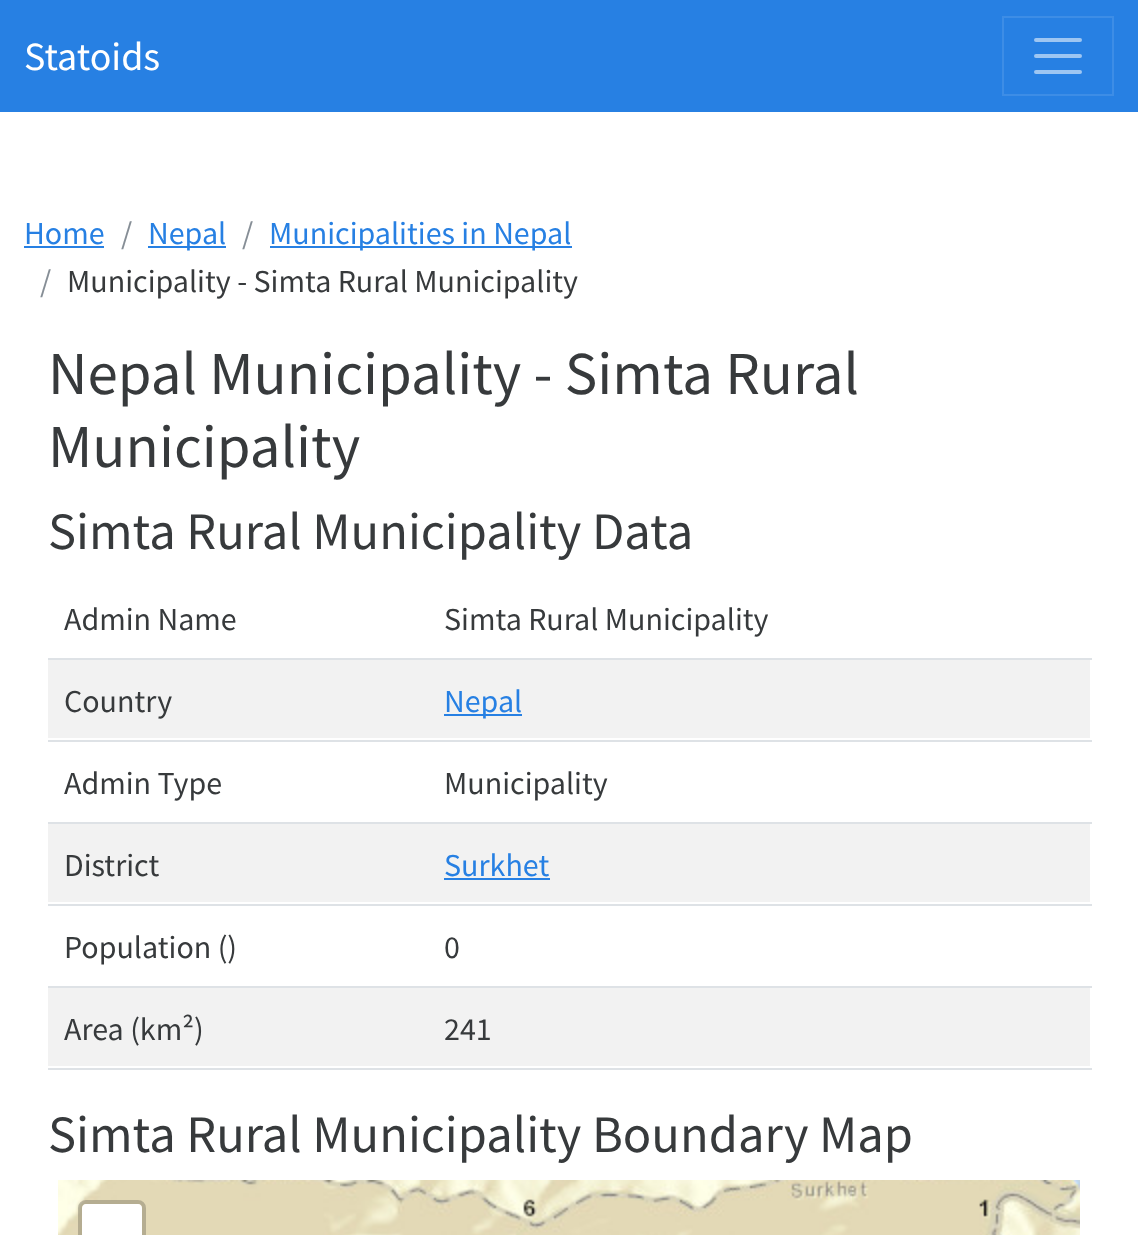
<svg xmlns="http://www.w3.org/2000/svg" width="1138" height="1235">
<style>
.a{font:40px Source Sans Pro;fill:#fff}
.b{font:32px Source Sans Pro;fill:#2780e3}
.c{font:32px Source Sans Pro;fill:#868e96}
.d{font:32px Source Sans Pro;fill:#373a3c}
.e{font:61px Source Sans Pro;fill:#373a3c}
.f{font:52.6px Source Sans Pro;fill:#373a3c}
</style>
<rect width="100%" height="100%" fill="#fff"/>
<path fill="#2780e3" d="M0 0h1138v112H0z"/>
<path fill="none" stroke="#3d8de6" stroke-width="2" d="M1003 17h110v78H1003z"/>
<path fill="none" stroke="#9ec6f2" stroke-width="4" stroke-linecap="round" d="M1036 40h44m-44 16h44m-44 16h44"/>
<path fill="#2780e3" d="M24 246h80v2H24z"/>
<path fill="#2780e3" d="M148 246h78v2H148z"/>
<path fill="#2780e3" d="M270 246h302v2H270z"/>
<path fill="#dee2e6" d="M48 658h1044v2H48z"/>
<path fill="#f2f2f2" d="M48 660h1042v78H48z"/>
<path fill="#dee2e6" d="M48 740h1044v2H48z"/>
<path fill="#2780e3" d="M444 714h78v2H444z"/>
<path fill="#dee2e6" d="M48 822h1044v2H48z"/>
<path fill="#f2f2f2" d="M48 824h1042v78H48z"/>
<path fill="#dee2e6" d="M48 904h1044v2H48z"/>
<path fill="#2780e3" d="M444 878h106v2H444z"/>
<path fill="#dee2e6" d="M48 986h1044v2H48z"/>
<path fill="#f2f2f2" d="M48 988h1042v78H48z"/>
<path fill="#dee2e6" d="M48 1068h1044v2H48z"/>
<image href="1.png" x="58" y="1180" width="282" height="55"/>
<image href="2.png" x="340" y="1180" width="512" height="55"/>
<image href="3.png" x="852" y="1180" width="228" height="55"/>
<rect fill="none" stroke="#00000033" stroke-width="4" x="80" y="1202" width="64" height="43" rx="6"/>
<path fill="#fff" d="M86 1204h52c2 0 4 2 4 4v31h-60v-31c0-2 2-4 4-4z"/>
<text class="a" x="24" y="70">Statoids</text>
<text class="b" x="24" y="244">Home</text>
<text class="c" x="121" y="244">/</text>
<text class="b" x="148" y="244">Nepal</text>
<text class="c" x="242" y="244">/</text>
<text class="b" x="269" y="244">Municipalities in Nepal</text>
<text class="c" x="40" y="292">/</text>
<text class="d" x="67" y="292">Municipality - Simta Rural Municipality</text>
<text class="e" x="48" y="394">Nepal Municipality - Simta Rural</text>
<text class="e" x="48" y="467">Municipality</text>
<text class="f" x="48" y="549">Simta Rural Municipality Data</text>
<text class="d" x="64" y="630">Admin Name</text>
<text class="d" x="444" y="630">Simta Rural Municipality</text>
<text class="d" x="64" y="712">Country</text>
<text class="b" x="444" y="712">Nepal</text>
<text class="d" x="64" y="794">Admin Type</text>
<text class="d" x="444" y="794">Municipality</text>
<text class="d" x="64" y="876">District</text>
<text class="b" x="444" y="876">Surkhet</text>
<text class="d" x="64" y="958">Population ()</text>
<text class="d" x="444" y="958">0</text>
<text class="d" x="64" y="1040">Area (km²)</text>
<text class="d" x="444" y="1040">241</text>
<text class="f" x="48" y="1152">Simta Rural Municipality Boundary Map</text>
</svg>
